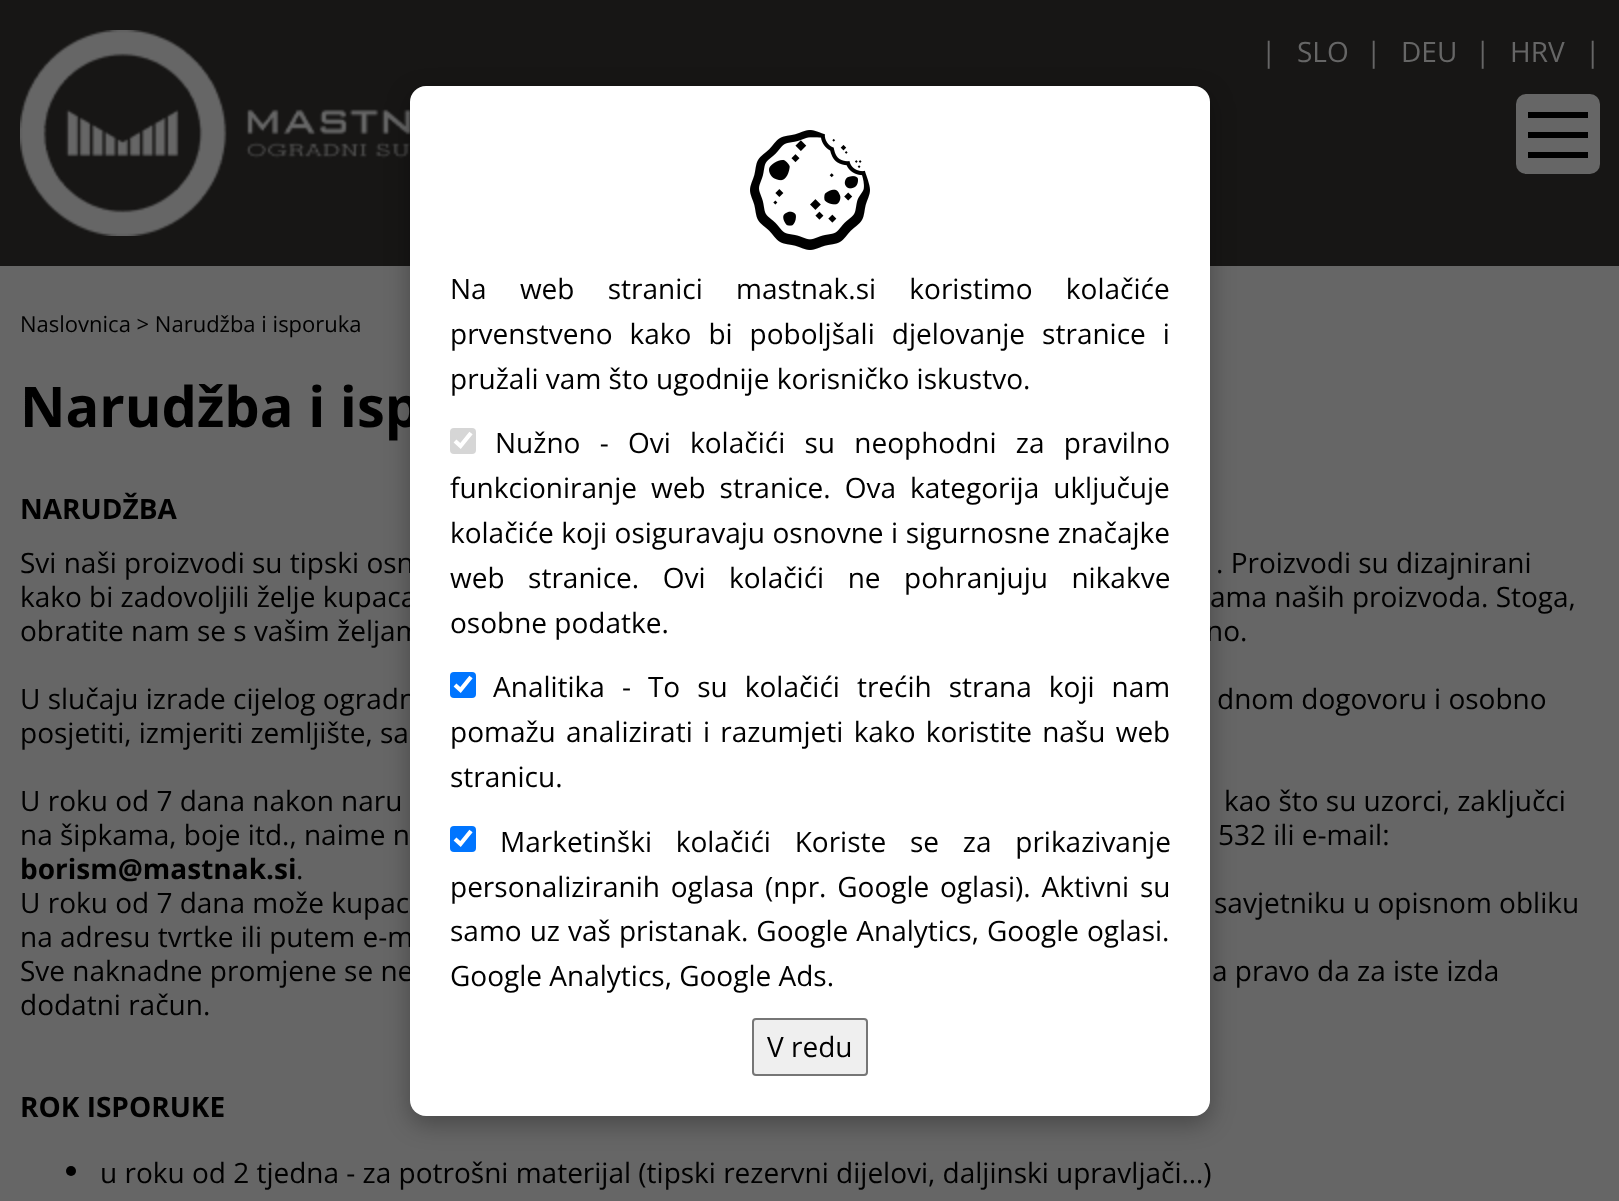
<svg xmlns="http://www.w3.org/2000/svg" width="1619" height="1201">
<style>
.a{font:28px Open Sans;fill:#666}
.b{font:22px Open Sans;fill:#000}
.c{font:bold 56px Open Sans;fill:#000}
.d{font:bold 28px Open Sans;fill:#000}
.e{font:28px Open Sans;fill:#000}
</style>
<rect width="100%" height="100%" fill="#171615"/>
<image href="1.png" x="20" y="30" width="390" height="206"/>
<rect fill="#666" x="1516" y="94" width="84" height="80" rx="10"/>
<path fill="#000" d="M1528 132h60v6H1528z"/>
<path fill="#000" d="M1528 112h60v6H1528z"/>
<path fill="#000" d="M1528 152h60v6H1528z"/>
<path fill="#666" d="M0 266h1619v935H0z"/>
<rect fill="#0000004d" filter="blur(12px)" x="410" y="94" width="800" height="1030" rx="16"/>
<circle fill="#000" cx="71" cy="1171" r="5"/>
<text class="a" x="1261" y="62">|</text>
<text class="a" x="1297" y="62">SLO</text>
<text class="a" x="1366" y="62">|</text>
<text class="a" x="1401" y="62">DEU</text>
<text class="a" x="1475" y="62">|</text>
<text class="a" x="1510" y="62">HRV</text>
<text class="a" x="1585" y="62">|</text>
<text class="b" x="20" y="332">Naslovnica &gt; Narudžba i isporuka</text>
<text class="c" x="20" y="427">Narudžba i isp</text>
<text class="d" x="20" y="519">NARUDŽBA</text>
<text class="e" x="20" y="573">Svi naši proizvodi su tipski osn</text>
<text class="e" x="1216" y="573">. Proizvodi su dizajnirani</text>
<text class="e" x="20" y="607">kako bi zadovoljili želje kupaca</text>
<text class="e" x="1210" y="607">ama naših proizvoda. Stoga,</text>
<text class="e" x="20" y="641">obratite nam se s vašim željam</text>
<text class="e" x="1206" y="641">no.</text>
<text class="e" x="20" y="709">U slučaju izrade cijelog ogradn</text>
<text class="e" x="1217" y="709">dnom dogovoru i osobno</text>
<text class="e" x="20" y="743">posjetiti, izmjeriti zemljište, sa</text>
<text class="e" x="20" y="811">U roku od 7 dana nakon naru</text>
<text class="e" x="1224" y="811">kao što su uzorci, zaključci</text>
<text class="e" x="20" y="845">na šipkama, boje itd., naime n</text>
<text class="e" x="1218" y="845">532 ili e-mail:</text>
<text class="d" x="20" y="879">borism@mastnak.si</text>
<text class="e" x="296" y="879">.</text>
<text class="e" x="20" y="913">U roku od 7 dana može kupac</text>
<text class="e" x="1214" y="913">savjetniku u opisnom obliku</text>
<text class="e" x="20" y="947">na adresu tvrtke ili putem e-m</text>
<text class="e" x="20" y="981">Sve naknadne promjene se ne</text>
<rect fill="#fff" x="410" y="86" width="800" height="1030" rx="16"/>
<image href="2.png" x="750" y="130" width="120" height="120"/>
<rect fill="#efefef" stroke="#767676" stroke-width="2" x="753" y="1019" width="114" height="56" rx="3"/>
<text class="e" x="767" y="1057">V redu</text>
<text class="e" x="450" y="986">Google Analytics, Google Ads.</text>
<text class="e" x="450" y="941" word-spacing="0.75">samo uz vaš pristanak. Google Analytics, Google oglasi.</text>
<text class="e" x="450" y="897" word-spacing="3.5">personaliziranih oglasa (npr. Google oglasi). Aktivni su</text>
<text class="e" x="500" y="852" word-spacing="16.5">Marketinški kolačići Koriste se za prikazivanje</text>
<rect fill="#0075ff" x="450" y="826" width="26" height="26" rx="4"/>
<path fill="none" stroke="#fff" stroke-width="4.2" d="M455 839l5.5 5l10.5-13"/>
<text class="e" x="450" y="787">stranicu.</text>
<text class="e" x="450" y="742" word-spacing="3">pomažu analizirati i razumjeti kako koristite našu web</text>
<text class="e" x="493" y="697" word-spacing="9.75">Analitika - To su kolačići trećih strana koji nam</text>
<rect fill="#0075ff" x="450" y="672" width="26" height="26" rx="4"/>
<path fill="none" stroke="#fff" stroke-width="4.2" d="M455 685l5.5 5l10.5-13"/>
<text class="e" x="450" y="633">osobne podatke.</text>
<text class="e" x="450" y="588" word-spacing="16.25">web stranice. Ovi kolačići ne pohranjuju nikakve</text>
<text class="e" x="450" y="543" word-spacing="0.25">kolačiće koji osiguravaju osnovne i sigurnosne značajke</text>
<text class="e" x="450" y="498" word-spacing="6.75">funkcioniranje web stranice. Ova kategorija uključuje</text>
<text class="e" x="495" y="453" word-spacing="12">Nužno - Ovi kolačići su neophodni za pravilno</text>
<rect fill="#d6d6d6" x="450" y="428" width="26" height="26" rx="4"/>
<path fill="none" stroke="#fff" stroke-width="4.2" d="M455 441l5.5 5l10.5-13"/>
<text class="e" x="450" y="389">pružali vam što ugodnije korisničko iskustvo.</text>
<text class="e" x="450" y="344" word-spacing="9.75">prvenstveno kako bi poboljšali djelovanje stranice i</text>
<text class="e" x="450" y="299" word-spacing="26">Na web stranici mastnak.si koristimo kolačiće</text>
<text class="e" x="1212" y="981">a pravo da za iste izda</text>
<text class="e" x="20" y="1015">dodatni račun.</text>
<text class="d" x="20" y="1117">ROK ISPORUKE</text>
<text class="e" x="100" y="1183">u roku od 2 tjedna - za potrošni materijal (tipski rezervni dijelovi, daljinski upravljači…)</text>
</svg>
